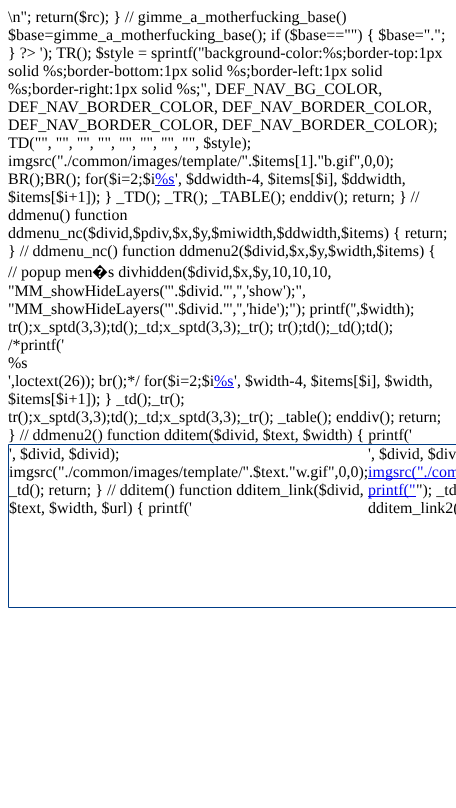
<svg xmlns="http://www.w3.org/2000/svg" width="456" height="808">
<style>
.a{font:16px Liberation Serif;fill:#000}
.b{font:16px Liberation Serif;fill:#00e}
.c{font:16px Noto Sans;fill:#000}
</style>
<rect width="100%" height="100%" fill="#fff"/>
<path fill="#00e" d="M155 185h20v1H155z"/>
<path fill="#00e" d="M214 387h20v1H214z"/>
<path fill="none" stroke="#003d87" d="M8.5 444.5h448v163H8.5z"/>
<path fill="#00e" d="M368 478h88v1H368z"/>
<path fill="#00e" d="M368 496h48v1H368z"/>
<text class="a" x="8" y="22">\n"; return($rc); } // gimme_a_motherfucking_base()</text>
<text class="a" x="8" y="40">$base=gimme_a_motherfucking_base(); if ($base=="") { $base=".";</text>
<text class="a" x="8" y="58">} ?&gt; '); TR(); $style = sprintf("background-color:%s;border-top:1px</text>
<text class="a" x="8" y="76">solid %s;border-bottom:1px solid %s;border-left:1px solid</text>
<text class="a" x="8" y="94">%s;border-right:1px solid %s;", DEF_NAV_BG_COLOR,</text>
<text class="a" x="8" y="112">DEF_NAV_BORDER_COLOR, DEF_NAV_BORDER_COLOR,</text>
<text class="a" x="8" y="130">DEF_NAV_BORDER_COLOR, DEF_NAV_BORDER_COLOR);</text>
<text class="a" x="8" y="148">TD("", "", "", "", "", "", "", "", $style);</text>
<text class="a" x="8" y="166">imgsrc("./common/images/template/".$items[1]."b.gif",0,0);</text>
<text class="b" x="155" y="184">%s</text>
<text class="a" x="175" y="184">', $ddwidth-4, $items[$i], $ddwidth,</text>
<text class="a" x="8" y="202">$items[$i+1]); } _TD(); _TR(); _TABLE(); enddiv(); return; } //</text>
<text class="a" x="8" y="220">ddmenu() function</text>
<text class="a" x="8" y="238">ddmenu_nc($divid,$pdiv,$x,$y,$miwidth,$ddwidth,$items) { return;</text>
<text class="a" x="8" y="256">} // ddmenu_nc() function ddmenu2($divid,$x,$y,$width,$items) {</text>
<text class="a" x="8" y="277">// popup men</text>
<text class="c" x="92" y="277">�</text>
<text class="a" x="108" y="277">s divhidden($divid,$x,$y,10,10,10,</text>
<text class="a" x="8" y="296">"MM_showHideLayers('".$divid."','','show');",</text>
<text class="a" x="8" y="314">"MM_showHideLayers('".$divid."','','hide');"); printf('',$width);</text>
<text class="a" x="8" y="332">tr();x_sptd(3,3);td();_td;x_sptd(3,3);_tr(); tr();td();_td();td();</text>
<text class="a" x="8" y="350">/*printf('</text>
<text class="a" x="8" y="368">%s</text>
<text class="a" x="8" y="386">',loctext(26)); br();*/ for($i=2;$i</text>
<text class="b" x="214" y="386">%s</text>
<text class="a" x="234" y="386">', $width-4, $items[$i], $width,</text>
<text class="a" x="8" y="404">$items[$i+1]); } _td();_tr();</text>
<text class="a" x="8" y="422">tr();x_sptd(3,3);td();_td;x_sptd(3,3);_tr(); _table(); enddiv(); return;</text>
<text class="a" x="8" y="440">} // ddmenu2() function dditem($divid, $text, $width) { printf('</text>
<text class="a" x="9" y="459">', $divid, $divid);</text>
<text class="a" x="9" y="477">imgsrc("./common/images/template/".$text."w.gif",0,0);</text>
<text class="a" x="9" y="495">_td(); return; } // dditem() function dditem_link($divid,</text>
<text class="a" x="9" y="513">$text, $width, $url) { printf('</text>
<text class="a" x="368" y="459">', $divid, $div</text>
<text class="b" x="368" y="477">imgsrc("./com</text>
<text class="b" x="368" y="495">printf("</text>
<text class="a" x="416" y="495">"); _td</text>
<text class="a" x="368" y="513">dditem_link2(</text>
<text class="a" x="8" y="184">BR();BR(); for($i=2;$i</text>
</svg>
